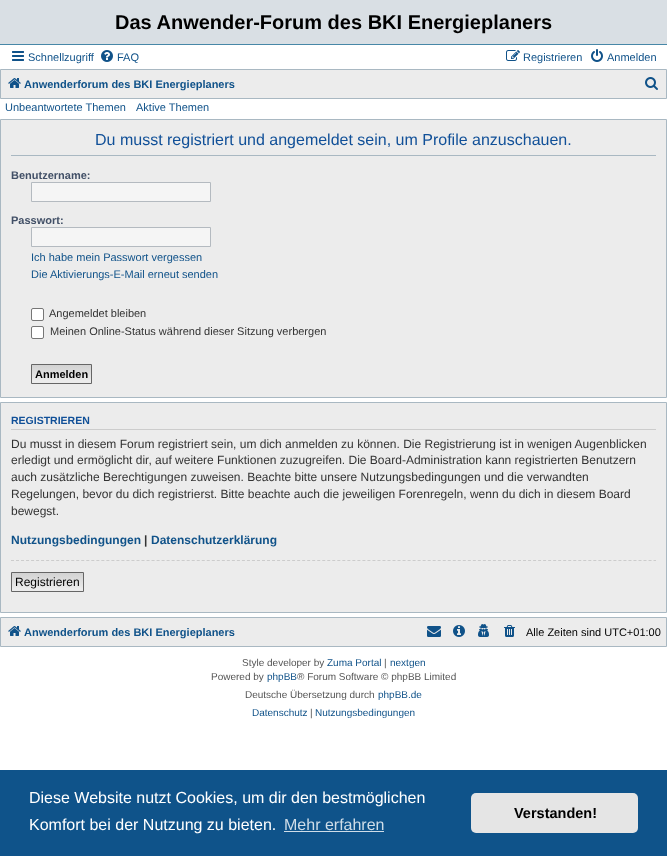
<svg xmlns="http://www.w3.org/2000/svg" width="667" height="856">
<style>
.a{font:bold 20px Liberation Sans;fill:#000}
.b{font:11px Liberation Sans;fill:#105289}
.c{font:bold 11px Liberation Sans;fill:#105289}
.d{font:16px Liberation Sans;fill:#115098}
.e{font:bold 11px Liberation Sans;fill:#425067}
.f{font:11px Liberation Sans;fill:#333}
.g{font:bold 11px Liberation Sans;fill:#000}
.h{font:bold 10.5px Liberation Sans;fill:#115098}
.i{font:12px Liberation Sans;fill:#333}
.j{font:bold 12px Liberation Sans;fill:#105289}
.k{font:bold 12px Liberation Sans;fill:#333}
.l{font:12px Liberation Sans;fill:#000}
.m{font:11px Liberation Sans;fill:#000}
.n{font:10px Liberation Sans;fill:#555}
.o{font:10px Liberation Sans;fill:#105289}
.p{font:16px Liberation Sans;fill:#fff}
.q{font:16px Liberation Sans;fill:#cfdde8}
.r{font:bold 14.5px Liberation Sans;fill:#000}
</style>
<defs>
<linearGradient id="g1" gradientUnits="userSpaceOnUse" x1="62" y1="365" x2="62" y2="383"><stop offset="0" stop-color="#d2d2d2"/><stop offset="1" stop-color="#efefef"/></linearGradient>
<linearGradient id="g2" gradientUnits="userSpaceOnUse" x1="48" y1="573" x2="48" y2="591"><stop offset="0" stop-color="#d2d2d2"/><stop offset="1" stop-color="#efefef"/></linearGradient>
</defs>
<rect width="100%" height="100%" fill="#fff"/>
<path fill="#d9dfe4" d="M0 0h667v44H0z"/>
<path fill="#4787a7" d="M0 44h667v1H0z"/>
<image href="1.png" x="12" y="51" width="12" height="10"/>
<image href="2.png" x="101" y="50" width="12" height="12"/>
<image href="3.png" x="506" y="50" width="14" height="11"/>
<image href="4.png" x="591" y="49" width="12" height="13"/>
<path fill="#ececec" stroke="#a9b8c2" d="M0.5 69.5h666v29H0.5z"/>
<image href="5.png" x="8" y="78" width="13" height="10"/>
<image href="6.png" x="645" y="77" width="13" height="13"/>
<path fill="#ececec" stroke="#a9b8c2" d="M0.5 119.5h666v278H0.5z"/>
<path fill="#a9b8c2" d="M11 155h645v1H11z"/>
<path fill="#f5f5f5" stroke="#b4bac0" d="M31.5 182.5h179v19H31.5z"/>
<path fill="#f5f5f5" stroke="#b4bac0" d="M31.5 227.5h179v19H31.5z"/>
<rect fill="#fff" stroke="#767676" x="31.5" y="308.5" width="12" height="12" rx="1.5"/>
<rect fill="#fff" stroke="#767676" x="31.5" y="326.5" width="12" height="12" rx="1.5"/>
<path fill="url(#g1)" d="M32 365h59v15H32z"/>
<path fill="none" stroke="#666" d="M31.5 364.5h60v19H31.5z"/>
<path fill="#ececec" stroke="#a9b8c2" d="M0.5 402.5h666v210H0.5z"/>
<path fill="#ccc" d="M11 429h645v1H11z"/>
<path fill="none" stroke="#ccc" stroke-dasharray="3 2.02" d="M11 560.5h645"/>
<path fill="url(#g2)" d="M12 573h71v15H12z"/>
<path fill="none" stroke="#666" d="M11.5 572.5h72v19H11.5z"/>
<path fill="#ececec" stroke="#a9b8c2" d="M0.5 617.5h666v29H0.5z"/>
<image href="5.png" x="8" y="626" width="13" height="10"/>
<image href="7.png" x="427" y="626" width="14" height="11"/>
<image href="8.png" x="453" y="625" width="12" height="12"/>
<image href="9.png" x="478" y="624" width="11" height="13"/>
<image href="10.png" x="504" y="625" width="11" height="12"/>
<path fill="#0f538a" d="M0 770h667v86H0z"/>
<path fill="#cfdde8" d="M284 831h100v1H284z"/>
<rect fill="#e5e5e5" x="471" y="793" width="167" height="40" rx="5"/>
<text class="a" x="115" y="29">Das Anwender-Forum des BKI Energieplaners</text>
<text class="b" x="28" y="61">Schnellzugriff</text>
<text class="b" x="117" y="61">FAQ</text>
<text class="b" x="523" y="61">Registrieren</text>
<text class="b" x="607" y="61">Anmelden</text>
<text class="c" x="24" y="88">Anwenderforum des BKI Energieplaners</text>
<text class="b" x="5" y="111">Unbeantwortete Themen</text>
<text class="b" x="136" y="111">Aktive Themen</text>
<text class="d" x="95" y="145">Du musst registriert und angemeldet sein, um Profile anzuschauen.</text>
<text class="e" x="11" y="179">Benutzername:</text>
<text class="e" x="11" y="224">Passwort:</text>
<text class="b" x="31" y="261">Ich habe mein Passwort vergessen</text>
<text class="b" x="31" y="278">Die Aktivierungs-E-Mail erneut senden</text>
<text class="f" x="49" y="317">Angemeldet bleiben</text>
<text class="f" x="50" y="335">Meinen Online-Status während dieser Sitzung verbergen</text>
<text class="g" x="35" y="378">Anmelden</text>
<text class="h" x="11" y="424">REGISTRIEREN</text>
<text class="i" x="11" y="448">Du musst in diesem Forum registriert sein, um dich anmelden zu können. Die Registrierung ist in wenigen Augenblicken</text>
<text class="i" x="11" y="464">erledigt und ermöglicht dir, auf weitere Funktionen zuzugreifen. Die Board-Administration kann registrierten Benutzern</text>
<text class="i" x="11" y="481">auch zusätzliche Berechtigungen zuweisen. Beachte bitte unsere Nutzungsbedingungen und die verwandten</text>
<text class="i" x="11" y="498">Regelungen, bevor du dich registrierst. Bitte beachte auch die jeweiligen Forenregeln, wenn du dich in diesem Board</text>
<text class="i" x="11" y="515">bewegst.</text>
<text class="j" x="11" y="544">Nutzungsbedingungen</text>
<text class="k" x="144" y="544">|</text>
<text class="j" x="151" y="544">Datenschutzerklärung</text>
<text class="l" x="15" y="586">Registrieren</text>
<text class="c" x="24" y="636">Anwenderforum des BKI Energieplaners</text>
<text class="m" x="526" y="636">Alle Zeiten sind UTC+01:00</text>
<text class="n" x="242" y="666">Style developer by</text>
<text class="o" x="327" y="666">Zuma Portal</text>
<text class="n" x="384" y="666">|</text>
<text class="o" x="390" y="666">nextgen</text>
<text class="n" x="211" y="680">Powered by</text>
<text class="o" x="267" y="680">phpBB</text>
<text class="n" x="297" y="680">® Forum Software © phpBB Limited</text>
<text class="n" x="245" y="698">Deutsche Übersetzung durch</text>
<text class="o" x="378" y="698">phpBB.de</text>
<text class="o" x="252" y="716">Datenschutz</text>
<text class="n" x="310" y="716">|</text>
<text class="o" x="315" y="716">Nutzungsbedingungen</text>
<text class="p" x="29" y="803">Diese Website nutzt Cookies, um dir den bestmöglichen</text>
<text class="p" x="29" y="830">Komfort bei der Nutzung zu bieten.</text>
<text class="q" x="284" y="830">Mehr erfahren</text>
<text class="r" x="514" y="818">Verstanden!</text>
</svg>
